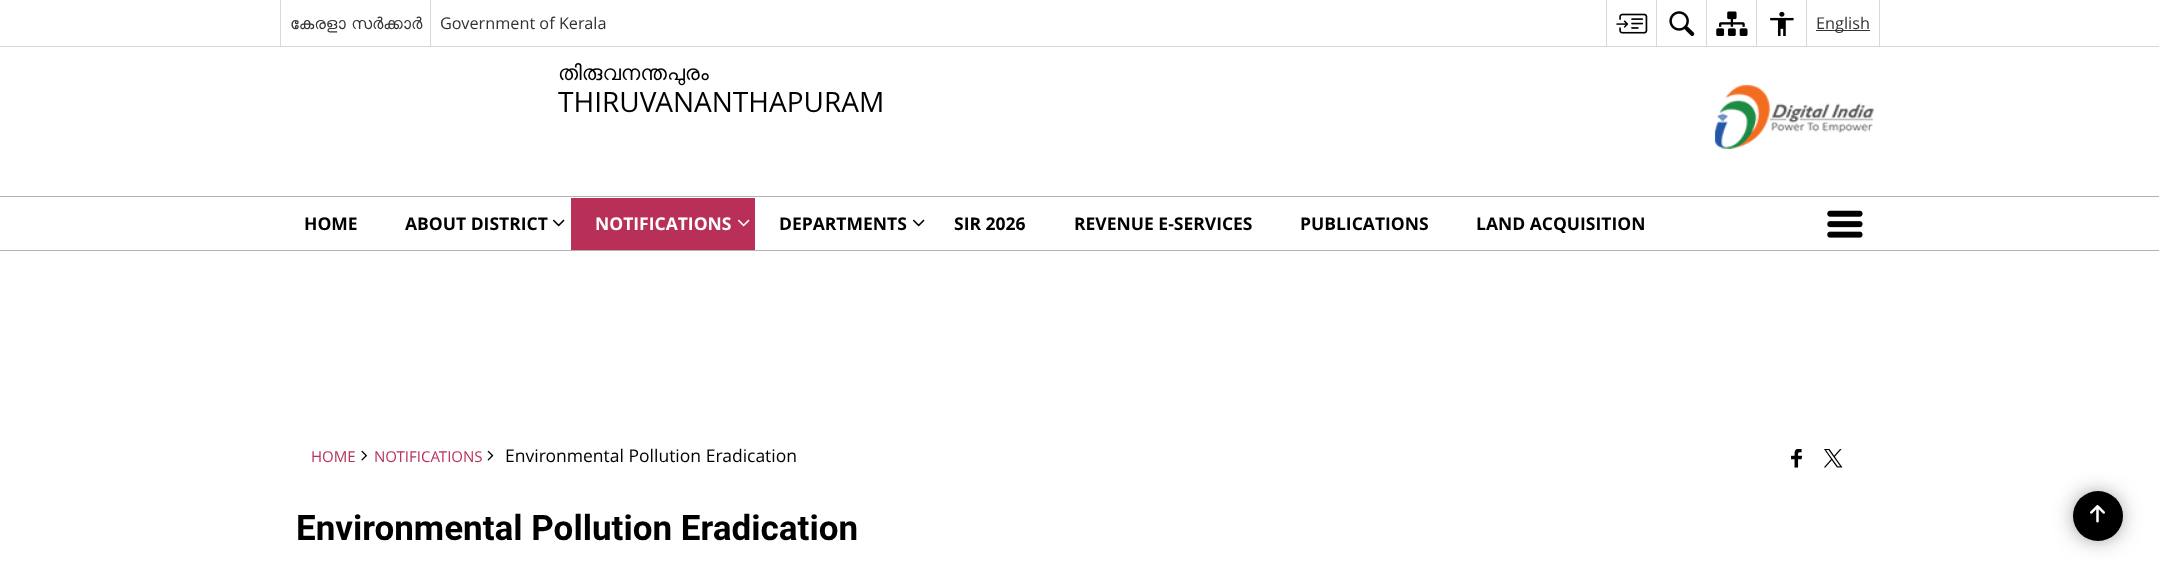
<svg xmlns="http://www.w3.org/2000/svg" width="2159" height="578">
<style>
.a{font:16.25px FreeSans;fill:#333}
.b{font:16.25px Open Sans;fill:#333}
.c{font:21px FreeSans;fill:#000}
.d{font:28px Open Sans;fill:#000}
.e{font:bold 17.5px Open Sans;fill:#000}
.f{font:bold 17.5px Open Sans;fill:#fff}
.g{font:15px Open Sans;fill:#b83058}
.h{font:17.5px Open Sans;fill:#000}
.i{font:bold 35px Roboto;fill:#000}
</style>
<rect width="100%" height="100%" fill="#fff"/>
<path fill="#d8d8d8" d="M0 46h2159v1H0z"/>
<path fill="#d8d8d8" d="M280 0h1v46H280z"/>
<path fill="#d8d8d8" d="M430 0h1v46H430z"/>
<path fill="#d8d8d8" d="M1606 0h1v46H1606z"/>
<image href="1.png" x="1616" y="13" width="32" height="21"/>
<path fill="#d8d8d8" d="M1656 0h1v46H1656z"/>
<image href="2.png" x="1669" y="11" width="26" height="25"/>
<path fill="#d8d8d8" d="M1706 0h1v46H1706z"/>
<image href="3.png" x="1716" y="11" width="32" height="25"/>
<path fill="#d8d8d8" d="M1756 0h1v46H1756z"/>
<image href="4.png" x="1770" y="11" width="24" height="25"/>
<path fill="#d8d8d8" d="M1879 0h1v46H1879z"/>
<path fill="#d8d8d8" d="M1806 0h1v46H1806z"/>
<path fill="#333" d="M1816 30h54v1H1816z"/>
<image href="5.png" x="1714" y="84" width="160" height="65"/>
<path fill="#b3b3b3" d="M0 196h2159v1H0z"/>
<path fill="#b3b3b3" d="M0 250h2159v1H0z"/>
<image href="6.png" x="552" y="219" width="13" height="8"/>
<path fill="#b83058" d="M571 198h184v52H571z"/>
<image href="7.png" x="737" y="219" width="13" height="8"/>
<image href="6.png" x="912" y="219" width="13" height="8"/>
<image href="8.png" x="1827" y="210" width="36" height="28"/>
<image href="9.png" x="361" y="450" width="6" height="11"/>
<image href="10.png" x="487" y="450" width="7" height="11"/>
<image href="11.png" x="1791" y="449" width="12" height="19"/>
<image href="12.png" x="1824" y="449" width="19" height="19"/>
<rect fill="#3c3c3c" filter="blur(12px)" x="2079" y="498" width="37" height="37" rx="18.5"/>
<circle fill="#000" cx="2098" cy="516" r="25"/>
<image href="13.png" x="2090" y="505" width="15" height="18"/>
<text class="a" x="290" y="29" word-spacing="-1">കേരളാ സർക്കാർ</text>
<text class="b" x="440" y="29">Government of Kerala</text>
<text class="b" x="1816" y="29">English</text>
<text class="c" x="558" y="80">തിരുവനന്തപുരം</text>
<text class="d" x="558" y="112">THIRUVANANTHAPURAM</text>
<text class="e" x="304" y="230">HOME</text>
<text class="e" x="405" y="230">ABOUT DISTRICT</text>
<text class="f" x="595" y="230">NOTIFICATIONS</text>
<text class="e" x="779" y="230">DEPARTMENTS</text>
<text class="e" x="954" y="230">SIR 2026</text>
<text class="e" x="1074" y="230">REVENUE E-SERVICES</text>
<text class="e" x="1300" y="230">PUBLICATIONS</text>
<text class="e" x="1476" y="230">LAND ACQUISITION</text>
<text class="g" x="311" y="462">HOME</text>
<text class="g" x="374" y="462">NOTIFICATIONS</text>
<text class="h" x="505" y="462">Environmental Pollution Eradication</text>
<text class="i" x="296" y="540">Environmental Pollution Eradication</text>
</svg>
